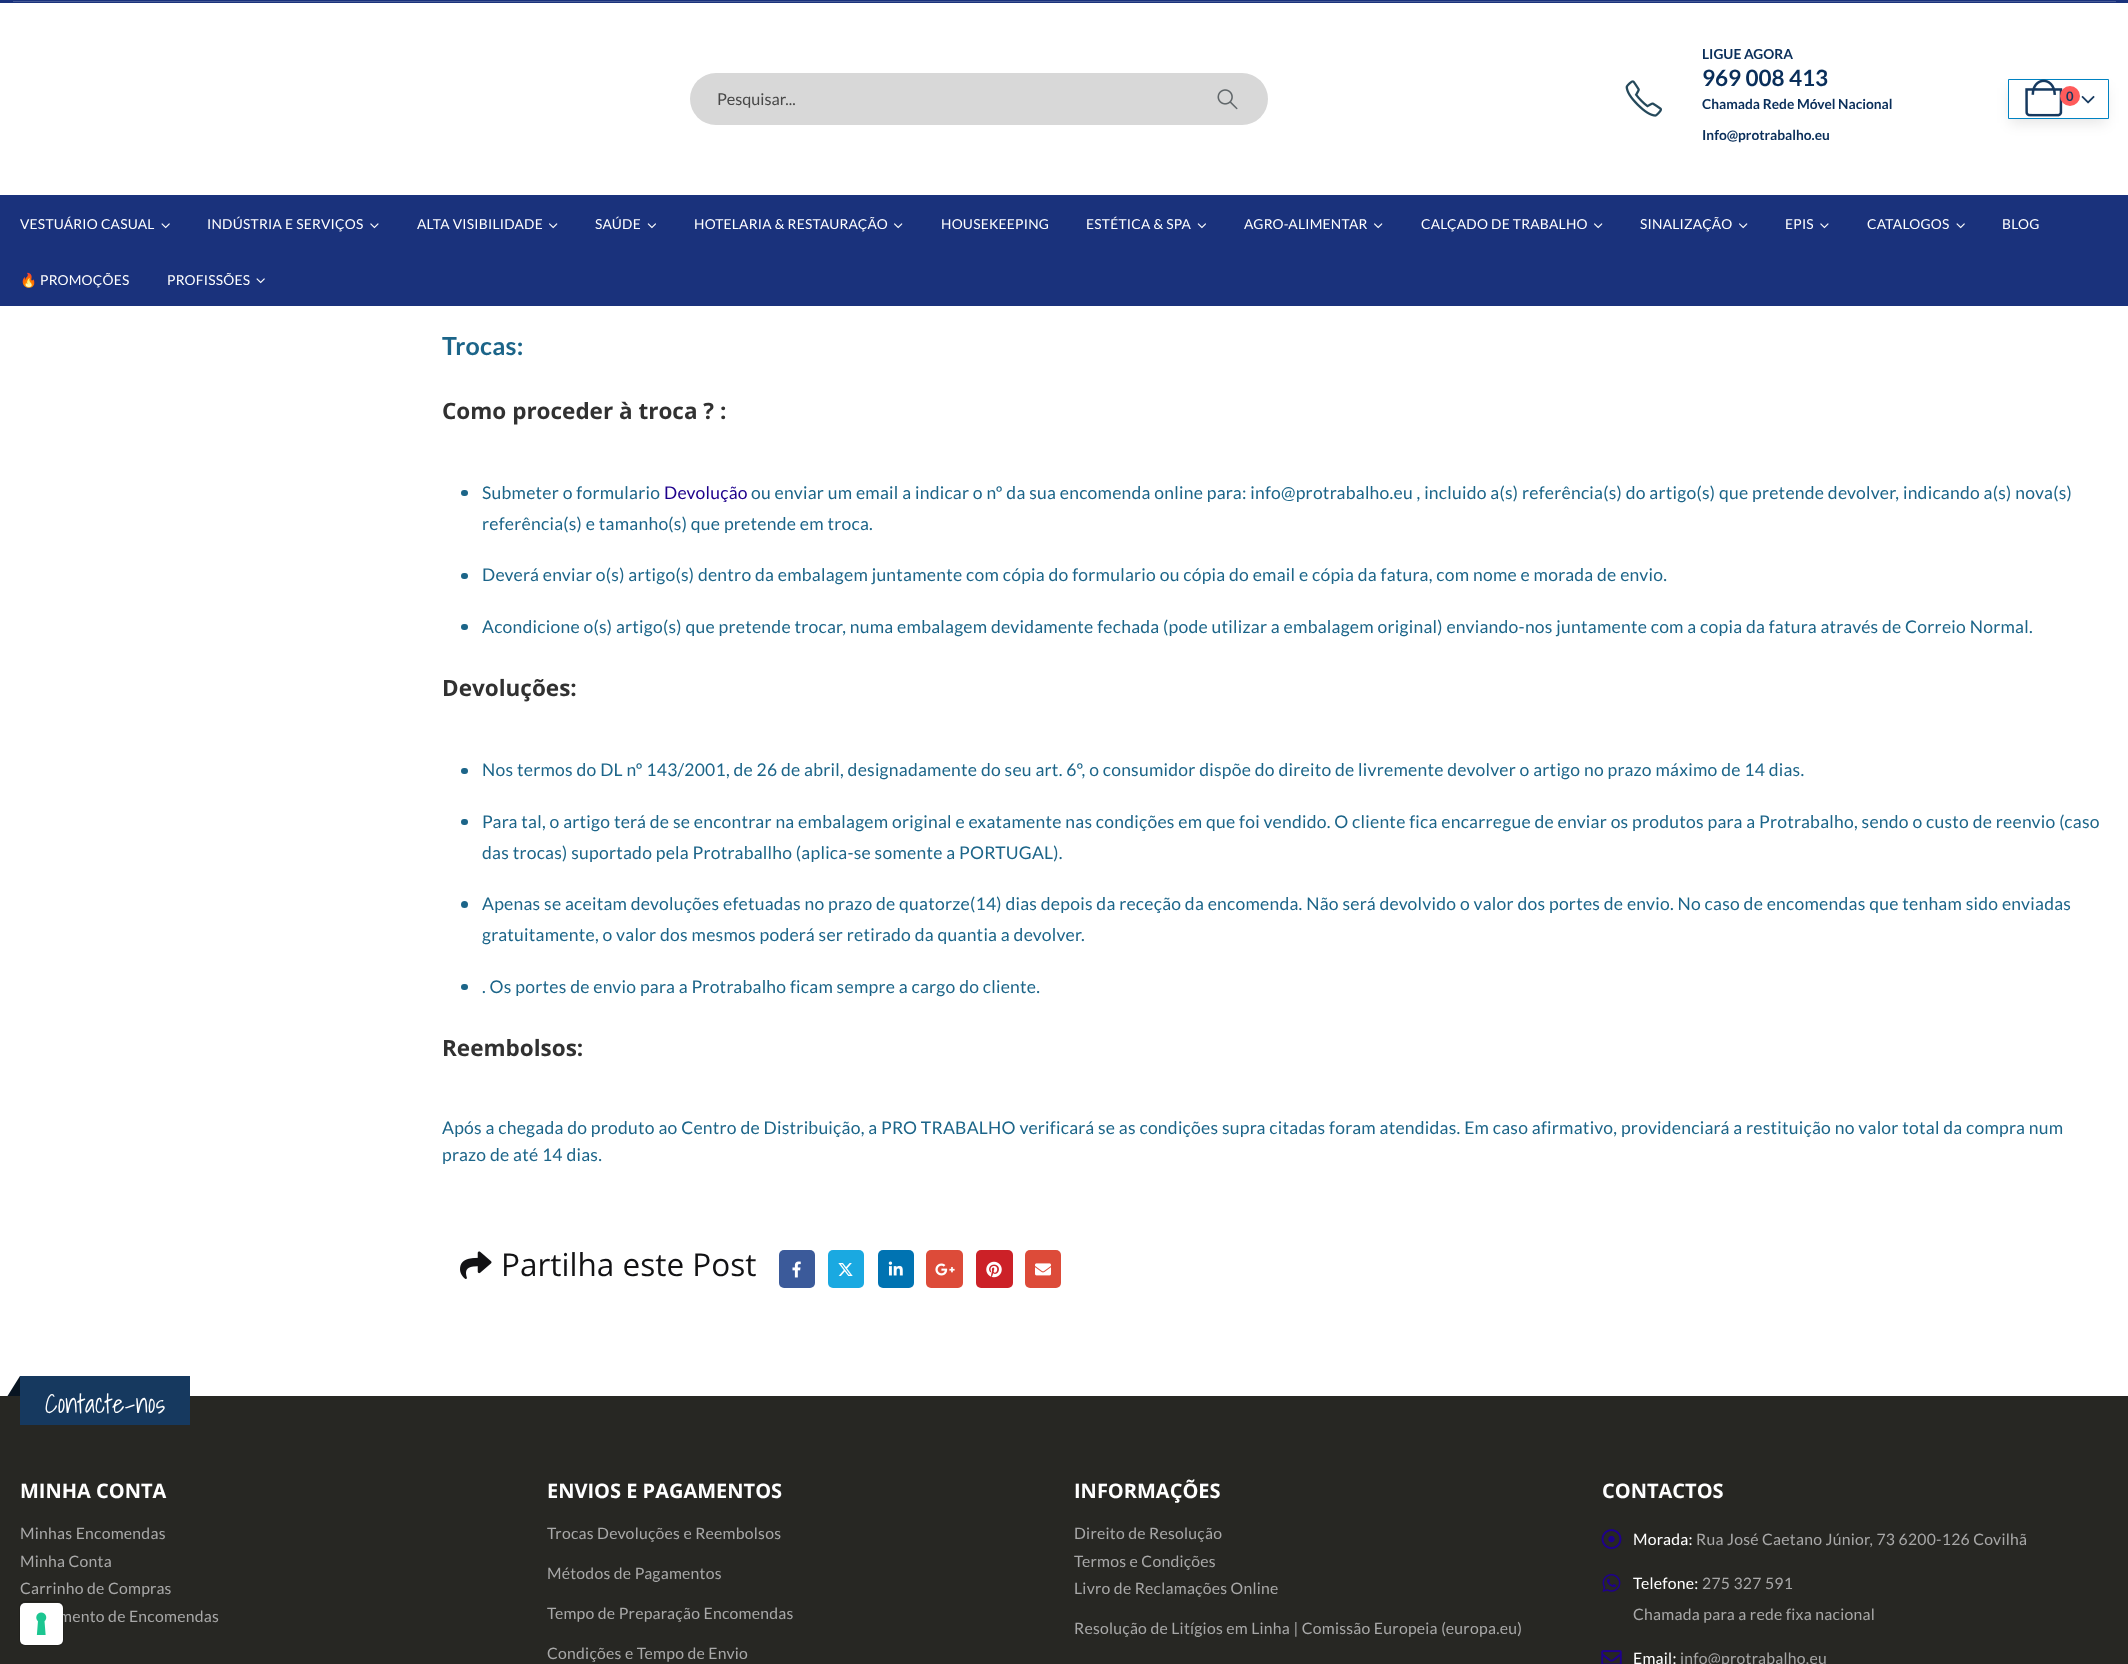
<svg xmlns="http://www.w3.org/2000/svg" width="2128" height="1664">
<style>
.a{font:16.25px Lato;fill:#484848}
.b{font:bold 13.75px Lato;fill:#092e5a}
.c{font:bold 22.5px Lato;fill:#092e5a}
.d{font:bold 13px Lato;letter-spacing:0.25px;fill:#16395f}
.e{font:13.75px Lato;letter-spacing:0.25px;fill:#fff}
.f{font:13.75px Noto Color Emoji;letter-spacing:0.25px;fill:#fff}
.g{font:bold 25px Lato;letter-spacing:0.25px;fill:#1c6589}
.h{font:bold 22.5px Open Sans;fill:#313131}
.i{font:17.5px Lato;letter-spacing:0.25px;fill:#1c6589}
.j{font:17.5px Lato;letter-spacing:0.25px;fill:#1e008c}
.k{font:31.5px Open Sans;fill:#121214}
.l{font:300 26px Shadows Into Light;letter-spacing:0.25px;fill:#fff}
.m{font:bold 20px Open Sans;fill:#fff}
.n{font:15.75px Lato;letter-spacing:0.25px;fill:#a8a8a8}
.o{font:15.75px Lato;letter-spacing:0.25px;fill:#fff}
</style>
<defs>
<clipPath id="clip1"><path d="M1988 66h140v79h-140zm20 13h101v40h-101z" clip-rule="evenodd"/></clipPath>
</defs>
<rect width="100%" height="100%" fill="#fff"/>
<path fill="#1a327c" d="M0 0h2128v3H0z"/>
<path fill="#465a95" d="M13 1h2103v1H13z"/>
<rect fill="#d8d8d8" x="690" y="73" width="578" height="52" rx="26"/>
<image href="1.png" x="1217" y="89" width="21" height="21"/>
<image href="2.png" x="1625" y="80" width="37" height="37"/>
<g clip-path="url(#clip1)">
<path fill="#0000001a" filter="blur(7px)" d="M2010 88h96v35H2010z"/>
</g>
<path fill="none" stroke="#0082c2" d="M2008.5 79.5h100v39H2008.5z"/>
<image href="3.png" x="2025" y="79" width="38" height="38"/>
<circle fill="#ff5b5b" cx="2070" cy="96" r="10"/>
<image href="4.png" x="2081" y="95" width="14" height="9"/>
<path fill="#1a327c" d="M0 195h2128v111H0z"/>
<image href="5.png" x="161" y="223" width="9" height="6"/>
<image href="6.png" x="370" y="223" width="9" height="6"/>
<image href="7.png" x="549" y="223" width="9" height="6"/>
<image href="8.png" x="647" y="223" width="9" height="6"/>
<image href="7.png" x="894" y="223" width="9" height="6"/>
<image href="8.png" x="1197" y="223" width="9" height="6"/>
<image href="7.png" x="1374" y="223" width="9" height="6"/>
<image href="7.png" x="1594" y="223" width="9" height="6"/>
<image href="7.png" x="1739" y="223" width="9" height="6"/>
<image href="6.png" x="1820" y="223" width="9" height="6"/>
<image href="5.png" x="1956" y="223" width="9" height="6"/>
<image href="5.png" x="256" y="278" width="9" height="6"/>
<rect fill="#1c6589" x="461" y="490" width="7" height="6" rx="3"/>
<rect fill="#1c6589" x="461" y="573" width="7" height="6" rx="3"/>
<rect fill="#1c6589" x="461" y="624" width="7" height="6" rx="3"/>
<rect fill="#1c6589" x="461" y="768" width="7" height="6" rx="3"/>
<rect fill="#1c6589" x="461" y="819" width="7" height="6" rx="3"/>
<circle fill="#1c6589" cx="464.5" cy="904.5" r="3.5"/>
<rect fill="#1c6589" x="461" y="984" width="7" height="6" rx="3"/>
<image href="9.png" x="460" y="1251" width="32" height="28"/>
<rect fill="#3b5a9a" x="779" y="1250" width="36" height="38" rx="5"/>
<image href="10.png" x="792" y="1261" width="9" height="17"/>
<rect fill="#1aa9e1" x="828" y="1250" width="36" height="38" rx="5"/>
<image href="11.png" x="838" y="1263" width="15" height="13"/>
<rect fill="#0073b2" x="878" y="1250" width="36" height="38" rx="5"/>
<image href="12.png" x="888" y="1261" width="15" height="15"/>
<rect fill="#dd4b39" x="926" y="1250" width="37" height="38" rx="5"/>
<image href="13.png" x="935" y="1263" width="20" height="13"/>
<rect fill="#cc2127" x="976" y="1250" width="37" height="38" rx="5"/>
<image href="14.png" x="986" y="1261" width="16" height="17"/>
<rect fill="#dd4b39" x="1025" y="1250" width="36" height="38" rx="5"/>
<image href="15.png" x="1035" y="1263" width="16" height="13"/>
<path fill="#272723" d="M0 1396h2128v268H0z"/>
<path fill="#16395f" d="M20 1376h170v49H20z"/>
<path fill="#081421" d="M20 1376v20h-12.5z"/>
<image href="16.png" x="1601" y="1529" width="21" height="20"/>
<image href="17.png" x="1602" y="1574" width="19" height="18"/>
<image href="18.png" x="1601" y="1650" width="21" height="14"/>
<text class="a" x="717" y="105">Pesquisar...</text>
<text class="b" x="1702" y="59">LIGUE AGORA</text>
<text class="c" x="1702" y="86">969 008 413</text>
<text class="b" x="1702" y="109">Chamada Rede Móvel Nacional</text>
<text class="b" x="1702" y="140">Info@protrabalho.eu</text>
<text class="d" x="2066" y="101">0</text>
<text class="e" x="20" y="229">VESTUÁRIO CASUAL</text>
<text class="e" x="207" y="229">INDÚSTRIA E SERVIÇOS</text>
<text class="e" x="417" y="229">ALTA VISIBILIDADE</text>
<text class="e" x="595" y="229">SAÚDE</text>
<text class="e" x="694" y="229">HOTELARIA &amp; RESTAURAÇÃO</text>
<text class="e" x="941" y="229">HOUSEKEEPING</text>
<text class="e" x="1086" y="229">ESTÉTICA &amp; SPA</text>
<text class="e" x="1244" y="229">AGRO-ALIMENTAR</text>
<text class="e" x="1421" y="229">CALÇADO DE TRABALHO</text>
<text class="e" x="1640" y="229">SINALIZAÇÃO</text>
<text class="e" x="1785" y="229">EPIS</text>
<text class="e" x="1867" y="229">CATALOGOS</text>
<text class="e" x="2002" y="229">BLOG</text>
<text class="f" x="20" y="285">🔥</text>
<text class="e" x="40" y="285">PROMOÇÕES</text>
<text class="e" x="167" y="285">PROFISSÕES</text>
<text class="g" x="442" y="355">Trocas:</text>
<text class="h" x="442" y="419">Como proceder à troca ? :</text>
<text class="i" x="482" y="499">Submeter o formulario</text>
<text class="j" x="664" y="499">Devolução</text>
<text class="i" x="751" y="499">ou enviar um email a indicar o nº da sua encomenda online para: info@protrabalho.eu , incluido a(s) referência(s) do artigo(s) que pretende devolver, indicando a(s) nova(s)</text>
<text class="i" x="482" y="530">referência(s) e tamanho(s) que pretende em troca.</text>
<text class="i" x="482" y="581">Deverá enviar o(s) artigo(s) dentro da embalagem juntamente com cópia do formulario ou cópia do email e cópia da fatura, com nome e morada de envio.</text>
<text class="i" x="482" y="633">Acondicione o(s) artigo(s) que pretende trocar, numa embalagem devidamente fechada (pode utilizar a embalagem original) enviando-nos juntamente com a copia da fatura através de Correio Normal.</text>
<text class="h" x="442" y="696">Devoluções:</text>
<text class="i" x="482" y="776">Nos termos do DL nº 143/2001, de 26 de abril, designadamente do seu art. 6º, o consumidor dispõe do direito de livremente devolver o artigo no prazo máximo de 14 dias.</text>
<text class="i" x="482" y="828">Para tal, o artigo terá de se encontrar na embalagem original e exatamente nas condições em que foi vendido. O cliente fica encarregue de enviar os produtos para a Protrabalho, sendo o custo de reenvio (caso</text>
<text class="i" x="482" y="859">das trocas) suportado pela Protraballho (aplica-se somente a PORTUGAL).</text>
<text class="i" x="482" y="910">Apenas se aceitam devoluções efetuadas no prazo de quatorze(14) dias depois da receção da encomenda. Não será devolvido o valor dos portes de envio. No caso de encomendas que tenham sido enviadas</text>
<text class="i" x="482" y="941">gratuitamente, o valor dos mesmos poderá ser retirado da quantia a devolver.</text>
<text class="i" x="482" y="993">. Os portes de envio para a Protrabalho ficam sempre a cargo do cliente.</text>
<text class="h" x="442" y="1056">Reembolsos:</text>
<text class="i" x="442" y="1134">Após a chegada do produto ao Centro de Distribuição, a PRO TRABALHO verificará se as condições supra citadas foram atendidas. Em caso afirmativo, providenciará a restituição no valor total da compra num</text>
<text class="i" x="442" y="1161">prazo de até 14 dias.</text>
<text class="k" x="501" y="1276">Partilha este Post</text>
<text class="l" x="45" y="1413">Contacte-nos</text>
<text class="m" x="20" y="1498">MINHA CONTA</text>
<text class="n" x="20" y="1539">Minhas Encomendas</text>
<text class="n" x="20" y="1567">Minha Conta</text>
<text class="n" x="20" y="1594">Carrinho de Compras</text>
<text class="n" x="59" y="1622">mento de Encomendas</text>
<text class="m" x="547" y="1498">ENVIOS E PAGAMENTOS</text>
<text class="n" x="547" y="1539">Trocas Devoluções e Reembolsos</text>
<text class="n" x="547" y="1579">Métodos de Pagamentos</text>
<text class="n" x="547" y="1619">Tempo de Preparação Encomendas</text>
<text class="n" x="547" y="1659">Condições e Tempo de Envio</text>
<text class="m" x="1074" y="1498">INFORMAÇÕES</text>
<text class="n" x="1074" y="1539">Direito de Resolução</text>
<text class="n" x="1074" y="1567">Termos e Condições</text>
<text class="n" x="1074" y="1594">Livro de Reclamações Online</text>
<text class="n" x="1074" y="1634">Resolução de Litígios em Linha | Comissão Europeia (europa.eu)</text>
<text class="m" x="1602" y="1498">CONTACTOS</text>
<text class="o" x="1633" y="1545">Morada:</text>
<text class="n" x="1696" y="1545">Rua José Caetano Júnior, 73 6200-126 Covilhã</text>
<text class="o" x="1633" y="1589">Telefone:</text>
<text class="n" x="1702" y="1589">275 327 591</text>
<text class="n" x="1633" y="1620">Chamada para a rede fixa nacional</text>
<text class="o" x="1633" y="1664">Email:</text>
<text class="n" x="1680" y="1664">info@protrabalho.eu</text>
<rect fill="none" stroke="#00000026" x="19.5" y="1601.5" width="44" height="44" rx="5.5"/>
<rect fill="#fff" x="20" y="1603" width="43" height="42" rx="5"/>
<image href="19.png" x="36" y="1612" width="11" height="23"/>
</svg>
